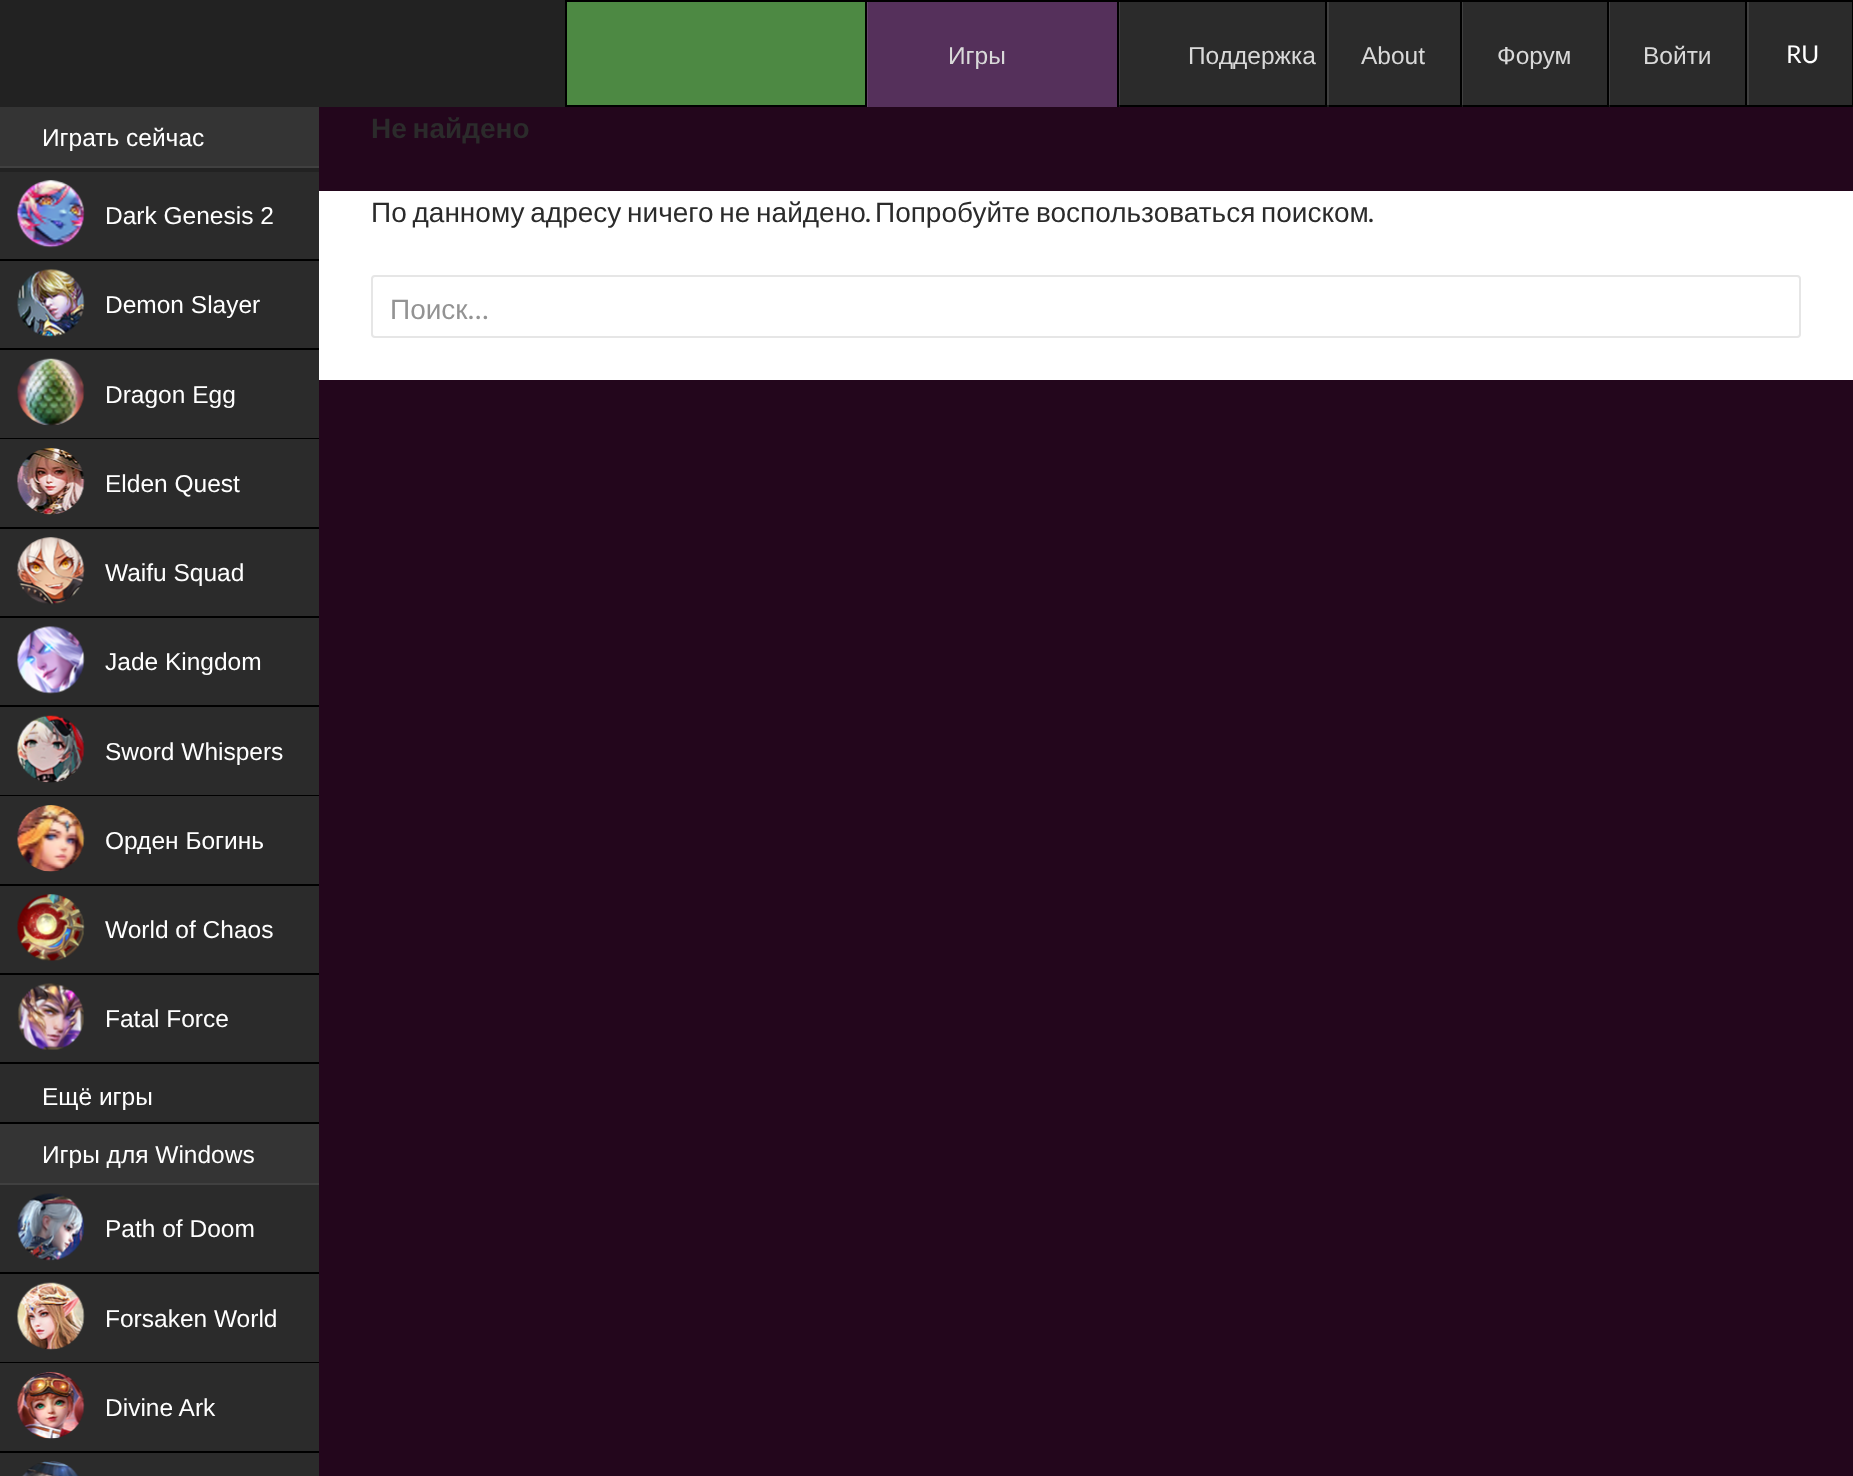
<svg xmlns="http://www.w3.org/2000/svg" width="1853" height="1476">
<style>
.a{font:24.5px Liberation Sans;fill:#d9d9d9}
.b{font:24.5px Lato;fill:#fff}
.c{font:24.5px Liberation Sans;fill:#fff}
.d{font:bold 28px Liberation Sans;fill:#2b2b2b}
.e{font:28px Liberation Sans;fill:#2b2b2b}
.f{font:28px Lato;fill:#2b2b2b}
.g{font:28px Liberation Sans;fill:#939393}
.h{font:28px Lato;fill:#939393}
</style>
<rect width="100%" height="100%" fill="#23061c"/>
<path fill="#222" d="M0 0h565v107H0z"/>
<path fill="none" stroke="#000" stroke-width="2" d="M566 1h1286v105H566z"/>
<path fill="#4d8943" d="M567 2h298v103H567z"/>
<path fill="#55305b" d="M868 2h249v105H868z"/>
<path fill="#66456b" d="M867 2h1v105H867z"/>
<path fill="#000" d="M865 2h2v105H865z"/>
<path fill="#2b2b2b" d="M1119 2h206v103H1119z"/>
<path fill="#ffffff1a" d="M1119 2h1v105H1119z"/>
<path fill="#000" d="M1117 2h2v105H1117z"/>
<path fill="#2b2b2b" d="M1327 2h133v103H1327z"/>
<path fill="#ffffff1a" d="M1327 2h2v105H1327z"/>
<path fill="#000" d="M1325 2h2v105H1325z"/>
<path fill="#2b2b2b" d="M1462 2h145v103H1462z"/>
<path fill="#ffffff1a" d="M1462 2h1v105H1462z"/>
<path fill="#000" d="M1460 2h2v105H1460z"/>
<path fill="#2b2b2b" d="M1609 2h136v103H1609z"/>
<path fill="#ffffff1a" d="M1609 2h1v105H1609z"/>
<path fill="#000" d="M1607 2h2v105H1607z"/>
<path fill="#2b2b2b" d="M1749 2h103v103H1749z"/>
<path fill="#404040" d="M1747 2h2v103H1747z"/>
<path fill="#000" d="M1745 2h2v103H1745z"/>
<path fill="#343434" d="M0 107h319v59H0z"/>
<path fill="#404040" d="M0 166h319v2H0z"/>
<path fill="#2b2b2b" d="M0 172h319v87H0z"/>
<path fill="#000" d="M0 259h319v2H0z"/>
<image href="1.png" x="17" y="180" width="68" height="68"/>
<path fill="#2b2b2b" d="M0 261h319v87H0z"/>
<path fill="#000" d="M0 348h319v2H0z"/>
<image href="2.png" x="17" y="269" width="68" height="68"/>
<path fill="#2b2b2b" d="M0 350h319v88H0z"/>
<path fill="#000" d="M0 438h319v1H0z"/>
<image href="3.png" x="17" y="358" width="68" height="68"/>
<path fill="#2b2b2b" d="M0 439h319v88H0z"/>
<path fill="#000" d="M0 527h319v2H0z"/>
<image href="4.png" x="17" y="448" width="68" height="67"/>
<path fill="#2b2b2b" d="M0 529h319v87H0z"/>
<path fill="#000" d="M0 616h319v2H0z"/>
<image href="5.png" x="17" y="537" width="68" height="68"/>
<path fill="#2b2b2b" d="M0 618h319v87H0z"/>
<path fill="#000" d="M0 705h319v2H0z"/>
<image href="6.png" x="17" y="626" width="68" height="68"/>
<path fill="#2b2b2b" d="M0 707h319v88H0z"/>
<path fill="#000" d="M0 795h319v1H0z"/>
<image href="7.png" x="17" y="715" width="68" height="68"/>
<path fill="#2b2b2b" d="M0 796h319v88H0z"/>
<path fill="#000" d="M0 884h319v2H0z"/>
<image href="8.png" x="17" y="805" width="68" height="67"/>
<path fill="#2b2b2b" d="M0 886h319v87H0z"/>
<path fill="#000" d="M0 973h319v2H0z"/>
<image href="9.png" x="17" y="894" width="68" height="67"/>
<path fill="#2b2b2b" d="M0 975h319v87H0z"/>
<path fill="#000" d="M0 1062h319v2H0z"/>
<image href="10.png" x="17" y="983" width="67" height="67"/>
<path fill="#2b2b2b" d="M0 1064h319v58H0z"/>
<path fill="#000" d="M0 1122h319v2H0z"/>
<path fill="#343434" d="M0 1124h319v59H0z"/>
<path fill="#404040" d="M0 1183h319v2H0z"/>
<path fill="#2b2b2b" d="M0 1185h319v291H0z"/>
<path fill="#000" d="M0 1272h319v2H0z"/>
<image href="11.png" x="17" y="1193" width="68" height="68"/>
<path fill="#000" d="M0 1362h319v1H0z"/>
<image href="12.png" x="17" y="1282" width="68" height="68"/>
<path fill="#000" d="M0 1451h319v2H0z"/>
<image href="13.png" x="17" y="1372" width="68" height="67"/>
<image href="14.png" x="22" y="1461" width="57" height="15"/>
<path fill="#fff" d="M319 191h1534v189H319z"/>
<rect fill="none" stroke="#e6e6e6" stroke-width="2" x="372" y="276" width="1428" height="61" rx="3"/>
<path fill="#222" d="M0 168h319v4H0z"/>
<text class="a" x="948" y="64">Игры</text>
<text class="a" x="1188" y="64">Поддержка</text>
<text class="a" x="1361" y="64">About</text>
<text class="a" x="1497" y="64">Форум</text>
<text class="a" x="1643" y="64">Войти</text>
<text class="b" x="1786" y="63">RU</text>
<text class="c" x="42" y="146">Играть сейчас</text>
<text class="c" x="105" y="224">Dark Genesis 2</text>
<text class="c" x="105" y="313">Demon Slayer</text>
<text class="c" x="105" y="403">Dragon Egg</text>
<text class="c" x="105" y="492">Elden Quest</text>
<text class="c" x="105" y="581">Waifu Squad</text>
<text class="c" x="105" y="670">Jade Kingdom</text>
<text class="c" x="105" y="760">Sword Whispers</text>
<text class="c" x="105" y="849">Орден Богинь</text>
<text class="c" x="105" y="938">World of Chaos</text>
<text class="c" x="105" y="1027">Fatal Force</text>
<text class="c" x="42" y="1105">Ещё игры</text>
<text class="c" x="42" y="1163">Игры для Windows</text>
<text class="c" x="105" y="1237">Path of Doom</text>
<text class="c" x="105" y="1327">Forsaken World</text>
<text class="c" x="105" y="1416">Divine Ark</text>
<text class="d" x="371" y="138" word-spacing="-2">Не найдено</text>
<text class="e" x="371" y="222" word-spacing="-2">По данному адресу ничего не найдено</text>
<text class="f" x="865" y="222">.</text>
<text class="e" x="875" y="222" word-spacing="-2">Попробуйте воспользоваться поиском</text>
<text class="f" x="1368" y="222">.</text>
<text class="g" x="390" y="319">Поиск</text>
<text class="h" x="468" y="319">…</text>
</svg>
